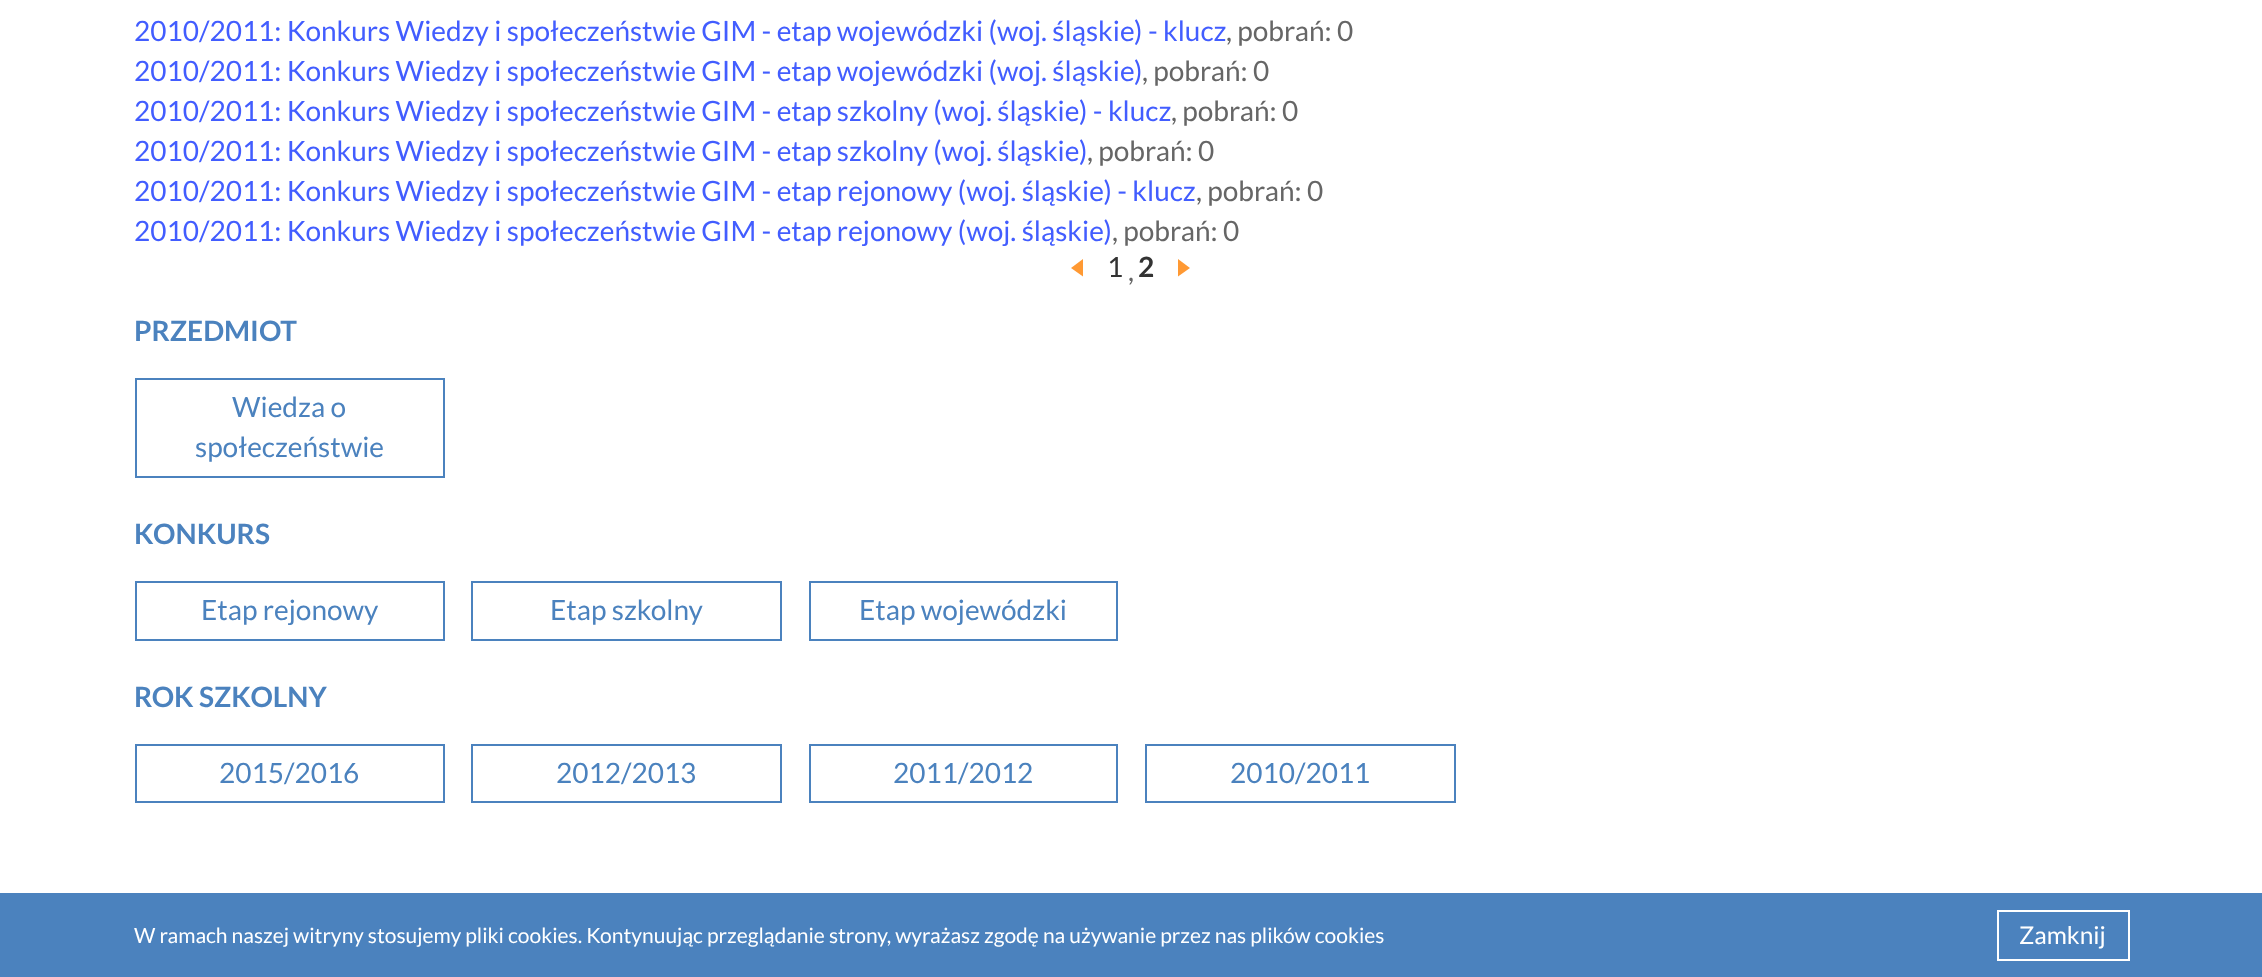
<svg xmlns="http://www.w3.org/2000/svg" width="2262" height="977">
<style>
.a{font:28px Lato;fill:#425dff}
.b{font:28px Lato;fill:#666}
.c{font:28px Lato;fill:#333}
.d{font:bold 28px Lato;fill:#333}
.e{font:bold 28px Lato;fill:#4b82be}
.f{font:28px Lato;fill:#4b82be}
.g{font:21px Lato;fill:#fff}
.h{font:24.5px Lato;fill:#fff}
</style>
<rect width="100%" height="100%" fill="#fff"/>
<path fill="#f93" d="M1083 259v17.5l-12-8.5z"/>
<path fill="#f93" d="M1178 276.5v-17.5l12 9z"/>
<path fill="none" stroke="#4b82be" stroke-width="2" d="M136 379h308v98H136z"/>
<path fill="none" stroke="#4b82be" stroke-width="2" d="M136 582h308v58H136z"/>
<path fill="none" stroke="#4b82be" stroke-width="2" d="M472 582h309v58H472z"/>
<path fill="none" stroke="#4b82be" stroke-width="2" d="M810 582h307v58H810z"/>
<path fill="none" stroke="#4b82be" stroke-width="2" d="M136 745h308v57H136z"/>
<path fill="none" stroke="#4b82be" stroke-width="2" d="M472 745h309v57H472z"/>
<path fill="none" stroke="#4b82be" stroke-width="2" d="M810 745h307v57H810z"/>
<path fill="none" stroke="#4b82be" stroke-width="2" d="M1146 745h309v57H1146z"/>
<path fill="#4b82be" d="M0 893h2262v84H0z"/>
<path fill="none" stroke="#fff" stroke-width="2" d="M1998 911h131v49H1998z"/>
<text class="a" x="134" y="41">2010/2011: Konkurs Wiedzy i społeczeństwie GIM - etap wojewódzki (woj. śląskie) - klucz</text>
<text class="b" x="1226" y="41">, pobrań: 0</text>
<text class="a" x="134" y="81">2010/2011: Konkurs Wiedzy i społeczeństwie GIM - etap wojewódzki (woj. śląskie)</text>
<text class="b" x="1142" y="81">, pobrań: 0</text>
<text class="a" x="134" y="121">2010/2011: Konkurs Wiedzy i społeczeństwie GIM - etap szkolny (woj. śląskie) - klucz</text>
<text class="b" x="1171" y="121">, pobrań: 0</text>
<text class="a" x="134" y="161">2010/2011: Konkurs Wiedzy i społeczeństwie GIM - etap szkolny (woj. śląskie)</text>
<text class="b" x="1087" y="161">, pobrań: 0</text>
<text class="a" x="134" y="201">2010/2011: Konkurs Wiedzy i społeczeństwie GIM - etap rejonowy (woj. śląskie) - klucz</text>
<text class="b" x="1196" y="201">, pobrań: 0</text>
<text class="a" x="134" y="241">2010/2011: Konkurs Wiedzy i społeczeństwie GIM - etap rejonowy (woj. śląskie)</text>
<text class="b" x="1112" y="241">, pobrań: 0</text>
<text class="c" x="1107" y="277">1</text>
<text class="b" x="1128" y="281">,</text>
<text class="d" x="1138" y="277">2</text>
<text class="e" x="134" y="341">PRZEDMIOT</text>
<text class="f" x="232" y="417">Wiedza o</text>
<text class="f" x="195" y="457">społeczeństwie</text>
<text class="e" x="134" y="544">KONKURS</text>
<text class="f" x="201" y="620">Etap rejonowy</text>
<text class="f" x="550" y="620">Etap szkolny</text>
<text class="f" x="859" y="620">Etap wojewódzki</text>
<text class="e" x="134" y="707">ROK SZKOLNY</text>
<text class="f" x="219" y="783">2015/2016</text>
<text class="f" x="556" y="783">2012/2013</text>
<text class="f" x="893" y="783">2011/2012</text>
<text class="f" x="1230" y="783">2010/2011</text>
<text class="g" x="134" y="943">W ramach naszej witryny stosujemy pliki cookies. Kontynuując przeglądanie strony, wyrażasz zgodę na używanie przez nas plików cookies</text>
<text class="h" x="2019" y="944">Zamknij</text>
</svg>
